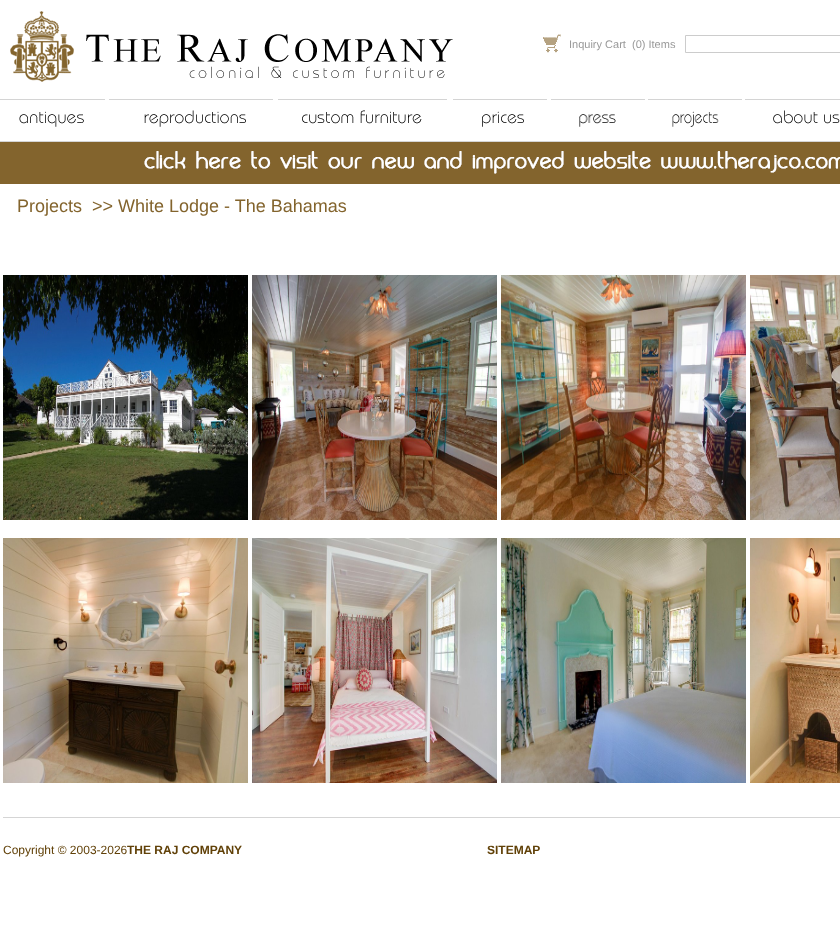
<svg xmlns="http://www.w3.org/2000/svg" width="840" height="928">
<style>
.a{font:11px Liberation Sans;fill:#999}
.b{font:18px Liberation Sans;fill:#83642d}
.c{font:12px Liberation Sans;fill:#614108}
.d{font:bold 12px Liberation Sans;fill:#614108}
</style>
<rect width="100%" height="100%" fill="#fff"/>
<image href="1.png" x="10" y="11" width="443" height="71"/>
<image href="2.png" x="543" y="34" width="18" height="19"/>
<path fill="none" stroke="#ccc" d="M685.5 35.5h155v17H685.5z"/>
<image href="3.png" x="0" y="99" width="105" height="28"/>
<image href="4.png" x="109" y="99" width="164" height="28"/>
<image href="5.png" x="278" y="99" width="169" height="25"/>
<image href="6.png" x="453" y="99" width="94" height="28"/>
<image href="7.png" x="551" y="99" width="94" height="28"/>
<image href="8.png" x="648" y="99" width="94" height="28"/>
<image href="9.png" x="745" y="99" width="95" height="25"/>
<path fill="#d5d5d5" d="M0 141h840v1H0z"/>
<image href="10.png" x="0" y="142" width="840" height="42"/>
<image href="11.png" x="3" y="275" width="245" height="245"/>
<image href="12.png" x="252" y="275" width="245" height="245"/>
<image href="13.png" x="501" y="275" width="245" height="245"/>
<image href="14.png" x="750" y="275" width="90" height="245"/>
<image href="15.png" x="3" y="538" width="245" height="245"/>
<image href="16.png" x="252" y="538" width="245" height="245"/>
<image href="17.png" x="501" y="538" width="245" height="245"/>
<image href="18.png" x="750" y="538" width="90" height="245"/>
<path fill="#d5d5d5" d="M3 817h837v1H3z"/>
<text class="a" x="569" y="48">Inquiry Cart</text>
<text class="a" x="632" y="48">(0) Items</text>
<text class="b" x="17" y="212">Projects</text>
<text class="b" x="92" y="212">&gt;&gt; White Lodge - The Bahamas</text>
<text class="c" x="3" y="854">Copyright © 2003-2026</text>
<text class="d" x="127" y="854">THE RAJ COMPANY</text>
<text class="d" x="487" y="854">SITEMAP</text>
</svg>
